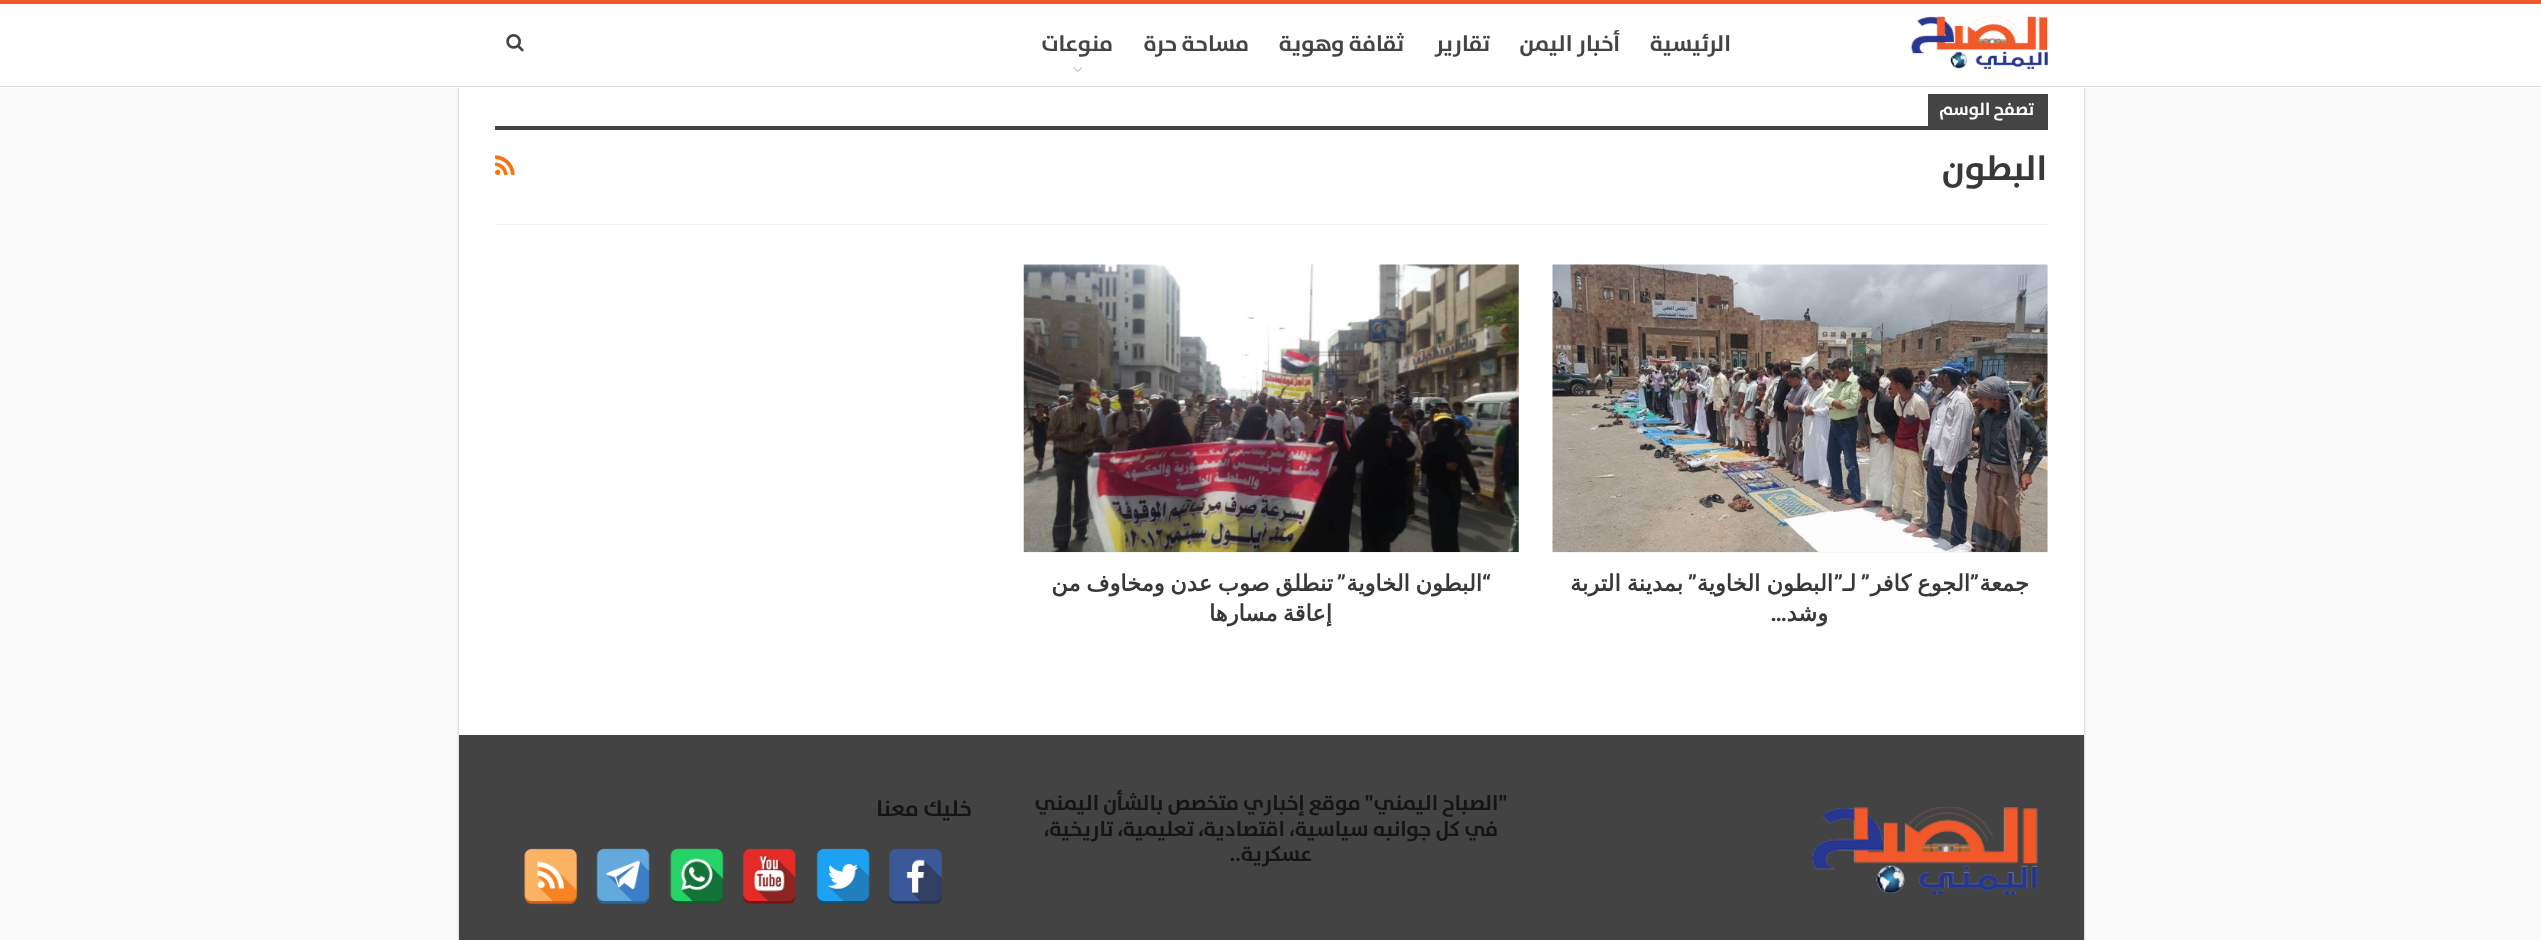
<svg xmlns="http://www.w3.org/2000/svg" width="2541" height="940">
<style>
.a{font:bold 22.5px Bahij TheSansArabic;direction:rtl;fill:#444}
.b{font:bold 17.5px Bahij TheSansArabic;direction:rtl;fill:#fff}
.c{font:bold 35px Bahij TheSansArabic;direction:rtl;fill:#383838}
.d{font:bold 22.5px Roboto;direction:rtl;fill:#383838}
.e{font:bold 22.5px DejaVu Sans;direction:rtl;fill:#383838}
.f{font:bold 21.25px Bahij TheSansArabic;direction:rtl;fill:#151515}
.g{font:bold 22.5px Bahij TheSansArabic;direction:rtl;fill:#151515}
</style>
<rect width="100%" height="100%" fill="#f9f9f9"/>
<path fill="#00000045" filter="blur(1px)" d="M459 -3h1625v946H459z"/>
<path fill="#fff" d="M459 88h1625v647H459z"/>
<path fill="#fff" d="M0 4h2541v84H0z"/>
<path fill="#f1592a" d="M0 0h2541v4H0z"/>
<path fill="#dedede" d="M0 86h2541v1H0z"/>
<image href="1.png" x="1911" y="16" width="137" height="54"/>
<image href="2.png" x="1073" y="67" width="9" height="6"/>
<image href="3.png" x="506" y="34" width="18" height="18"/>
<path fill="#f0f0f0" d="M495 224h1553v1H495z"/>
<path fill="#444" d="M1928 94h120v32H1928z"/>
<path fill="#444" d="M495 126h1553v4H495z"/>
<image href="4.png" x="495" y="155" width="20" height="20"/>
<path fill="#f5f5f5" d="M1553 265h495v288H1553z"/>
<image href="5.png" x="1552" y="264" width="496" height="288"/>
<path fill="#f5f5f5" d="M1024 265h495v288H1024z"/>
<image href="6.png" x="1023" y="264" width="496" height="288"/>
<path fill="#434343" d="M459 735h1625v205H459z"/>
<image href="7.png" x="1812" y="807" width="226" height="88"/>
<image href="8.png" x="889" y="848" width="53" height="56"/>
<image href="9.png" x="816" y="848" width="54" height="56"/>
<image href="10.png" x="743" y="848" width="53" height="56"/>
<image href="11.png" x="670" y="848" width="54" height="56"/>
<image href="12.png" x="596" y="848" width="54" height="56"/>
<image href="13.png" x="524" y="848" width="53" height="57"/>
<text class="a" x="1731" y="51">الرئيسية</text>
<text class="a" x="1620" y="51">أخبار اليمن</text>
<text class="a" x="1490" y="51">تقارير</text>
<text class="a" x="1404" y="51">ثقافة وهوية</text>
<text class="a" x="1249" y="51">مساحة حرة</text>
<text class="a" x="1113" y="51">منوعات</text>
<text class="b" x="2034" y="115">تصفح الوسم</text>
<text class="c" x="2047" y="180">البطون</text>
<text class="d" x="1979" y="591">”</text>
<text class="d" x="1870" y="591">”</text>
<text class="e" x="1970" y="591" word-spacing="-1">الجوع كافر</text>
<text class="e" x="1856" y="591">لـ</text>
<text class="d" x="1843" y="591">”</text>
<text class="e" x="1833" y="591" word-spacing="-1">البطون الخاوية</text>
<text class="d" x="1697" y="591">”</text>
<text class="e" x="1683" y="591" word-spacing="-1">بمدينة التربة</text>
<text class="e" x="2029" y="591">جمعة</text>
<text class="e" x="1828" y="621">وشد</text>
<text class="d" x="1787" y="621">…</text>
<text class="d" x="1491" y="591">“</text>
<text class="e" x="1482" y="591" word-spacing="-1.5">البطون الخاوية</text>
<text class="e" x="1333" y="591" word-spacing="-1.5">تنطلق صوب عدن ومخاوف من</text>
<text class="d" x="1346" y="591">”</text>
<text class="e" x="1332" y="621" word-spacing="-2">إعاقة مسارها</text>
<text class="f" x="1507" y="810">"الصباح اليمني" موقع إخباري متخصص بالشأن اليمني</text>
<text class="f" x="1498" y="836">في كل جوانبه سياسية، اقتصادية، تعليمية، تاريخية،</text>
<text class="f" x="1312" y="861">عسكرية..</text>
<text class="g" x="972" y="816">خليك معنا</text>
</svg>
